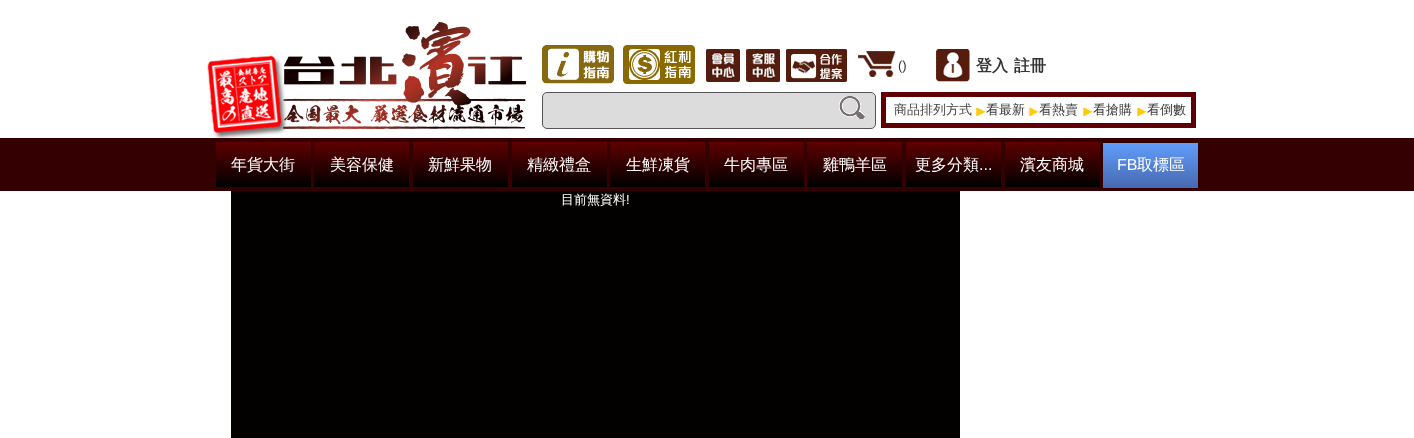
<svg xmlns="http://www.w3.org/2000/svg" width="1414" height="438">
<style>
.a{font:13px Liberation Sans;fill:#333}
.b{font:bold 16px WenQuanYi Zen Hei;fill:#333}
.c{font:500 13px WenQuanYi Zen Hei;fill:#47433d}
.d{font:500 13px WenQuanYi Zen Hei;fill:#333}
.e{font:500 16px WenQuanYi Zen Hei;fill:#fff}
.f{font:16px Liberation Sans;fill:#fff}
.g{font:500 13px WenQuanYi Zen Hei;fill:#fff}
.h{font:13px Liberation Sans;fill:#fff}
</style>
<defs>
<linearGradient id="g1" gradientUnits="userSpaceOnUse" x1="264" y1="142" x2="264" y2="187"><stop offset="0" stop-color="#5f0001"/><stop offset="1" stop-color="#000"/></linearGradient>
<linearGradient id="g2" gradientUnits="userSpaceOnUse" x1="362" y1="142" x2="362" y2="187"><stop offset="0" stop-color="#5f0001"/><stop offset="1" stop-color="#000"/></linearGradient>
<linearGradient id="g3" gradientUnits="userSpaceOnUse" x1="461" y1="142" x2="461" y2="187"><stop offset="0" stop-color="#5f0001"/><stop offset="1" stop-color="#000"/></linearGradient>
<linearGradient id="g4" gradientUnits="userSpaceOnUse" x1="560" y1="142" x2="560" y2="187"><stop offset="0" stop-color="#5f0001"/><stop offset="1" stop-color="#000"/></linearGradient>
<linearGradient id="g5" gradientUnits="userSpaceOnUse" x1="658" y1="142" x2="658" y2="187"><stop offset="0" stop-color="#5f0001"/><stop offset="1" stop-color="#000"/></linearGradient>
<linearGradient id="g6" gradientUnits="userSpaceOnUse" x1="757" y1="142" x2="757" y2="187"><stop offset="0" stop-color="#5f0001"/><stop offset="1" stop-color="#000"/></linearGradient>
<linearGradient id="g7" gradientUnits="userSpaceOnUse" x1="855" y1="142" x2="855" y2="187"><stop offset="0" stop-color="#5f0001"/><stop offset="1" stop-color="#000"/></linearGradient>
<linearGradient id="g8" gradientUnits="userSpaceOnUse" x1="954" y1="142" x2="954" y2="187"><stop offset="0" stop-color="#5f0001"/><stop offset="1" stop-color="#000"/></linearGradient>
<linearGradient id="g9" gradientUnits="userSpaceOnUse" x1="1053" y1="142" x2="1053" y2="187"><stop offset="0" stop-color="#5f0001"/><stop offset="1" stop-color="#000"/></linearGradient>
<linearGradient id="g10" gradientUnits="userSpaceOnUse" x1="1151" y1="143" x2="1151" y2="188"><stop offset="0" stop-color="#619dfc"/><stop offset="1" stop-color="#4769af"/></linearGradient>
</defs>
<rect width="100%" height="100%" fill="#fff"/>
<image href="1.png" x="207" y="22" width="319" height="116"/>
<image href="2.png" x="542" y="45" width="72" height="39"/>
<image href="3.png" x="623" y="45" width="72" height="39"/>
<image href="4.png" x="706" y="49" width="34" height="33"/>
<image href="5.png" x="746" y="49" width="34" height="33"/>
<image href="6.png" x="786" y="49" width="61" height="33"/>
<image href="7.png" x="858" y="51" width="38" height="26"/>
<image href="8.png" x="936" y="49" width="34" height="33"/>
<rect fill="#dcdcdc" stroke="#555" x="542.5" y="92.5" width="333" height="36" rx="4.5"/>
<image href="9.png" x="839" y="96" width="26" height="23"/>
<path fill="none" stroke="#5f0004" stroke-width="5" d="M883.5 94.5h310v31H883.5z"/>
<image href="10.png" x="976" y="108" width="10" height="8"/>
<image href="10.png" x="1029" y="108" width="10" height="8"/>
<image href="10.png" x="1083" y="108" width="10" height="8"/>
<image href="10.png" x="1137" y="108" width="10" height="8"/>
<path fill="#340001" d="M0 138h1414v53H0z"/>
<path fill="url(#g1)" d="M216 142h95v45H216z"/>
<path fill="url(#g2)" d="M314 142h95v45H314z"/>
<path fill="url(#g3)" d="M413 142h95v45H413z"/>
<path fill="url(#g4)" d="M512 142h95v45H512z"/>
<path fill="url(#g5)" d="M610 142h95v45H610z"/>
<path fill="url(#g6)" d="M709 142h95v45H709z"/>
<path fill="url(#g7)" d="M807 142h95v45H807z"/>
<path fill="url(#g8)" d="M906 142h95v45H906z"/>
<path fill="url(#g9)" d="M1005 142h95v45H1005z"/>
<path fill="url(#g10)" d="M1103 143h95v45H1103z"/>
<path fill="#030000" d="M231 191h729v247H231z"/>
<text class="a" x="898" y="70">()</text>
<text class="b" x="976" y="71">登入</text>
<text class="b" x="1014" y="71">註冊</text>
<text class="c" x="894" y="114">商品排列方式</text>
<text class="d" x="986" y="114">看最新</text>
<text class="d" x="1039" y="114">看熱賣</text>
<text class="d" x="1093" y="114">看搶購</text>
<text class="d" x="1147" y="114">看倒數</text>
<text class="e" x="231" y="170">年貨大街</text>
<text class="e" x="330" y="170">美容保健</text>
<text class="e" x="428" y="170">新鮮果物</text>
<text class="e" x="527" y="170">精緻禮盒</text>
<text class="e" x="626" y="170">生鮮凍貨</text>
<text class="e" x="724" y="170">牛肉專區</text>
<text class="e" x="823" y="170">雞鴨羊區</text>
<text class="e" x="915" y="170">更多分類</text>
<text class="f" x="979" y="170">...</text>
<text class="e" x="1020" y="170">濱友商城</text>
<text class="f" x="1117" y="170">FB</text>
<text class="e" x="1137" y="170">取標區</text>
<text class="g" x="561" y="204">目前無資料</text>
<text class="h" x="626" y="204">!</text>
</svg>
